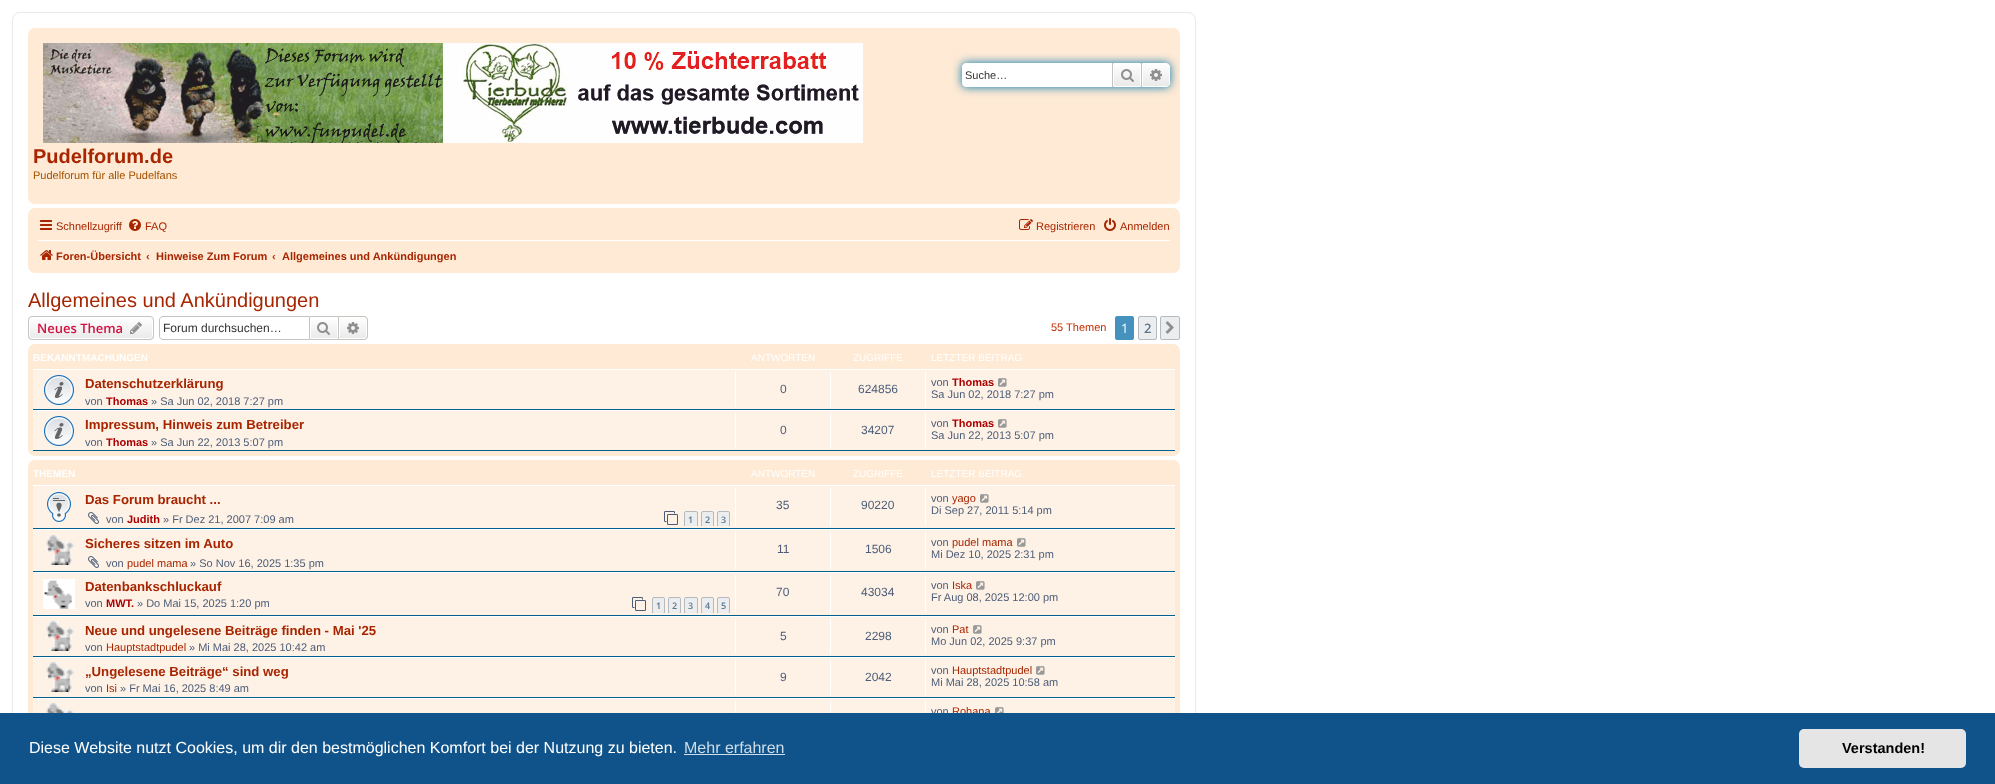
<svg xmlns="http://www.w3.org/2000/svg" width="1995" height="784">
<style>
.a{font:11px Liberation Sans;fill:#333}
.b{font:bold 20px Liberation Sans;fill:#a72601}
.c{font:11px Liberation Sans;fill:#a35201}
.d{font:11px Liberation Sans;fill:#a72601}
.e{font:bold 11px Liberation Sans;fill:#a72601}
.f{font:bold 11px Liberation Sans;fill:#c22d01}
.g{font:20px Liberation Sans;fill:#a72601}
.h{font:600 13px Open Sans;fill:#d31141}
.i{font:12px Liberation Sans;fill:#333}
.j{font:11px Liberation Sans;fill:#c22d01}
.k{font:13px Open Sans;fill:#fff}
.l{font:600 13px Open Sans;fill:#5c758c}
.m{font:bold 10px Liberation Sans;fill:#fff}
.n{font:10px Liberation Sans;fill:#fff}
.o{font:bold 13.2px Liberation Sans;fill:#a72601}
.p{font:11px Liberation Sans;fill:#4c5d77}
.q{font:bold 11px Liberation Sans;fill:#a00}
.r{font:12px Liberation Sans;fill:#4c5d77}
.s{font:600 9px Open Sans;fill:#5c758c}
.t{font:16px Liberation Sans;fill:#fff}
.u{font:16px Liberation Sans;fill:#cfdde8}
.v{font:bold 14.5px Liberation Sans;fill:#000}
</style>
<defs>
<linearGradient id="g1" gradientUnits="userSpaceOnUse" x1="1127" y1="63" x2="1127" y2="87"><stop offset="0" stop-color="#fff"/><stop offset="1" stop-color="#e9e9e9"/></linearGradient>
<linearGradient id="g2" gradientUnits="userSpaceOnUse" x1="1156" y1="63" x2="1156" y2="87"><stop offset="0" stop-color="#fff"/><stop offset="1" stop-color="#e9e9e9"/></linearGradient>
<clipPath id="clip1"><rect x="28" y="316" width="126" height="24" rx="4"/></clipPath>
<linearGradient id="g3" gradientUnits="userSpaceOnUse" x1="91" y1="317" x2="91" y2="339"><stop offset="0" stop-color="#fff"/><stop offset="1" stop-color="#e9e9e9"/></linearGradient>
<linearGradient id="g4" gradientUnits="userSpaceOnUse" x1="324" y1="317" x2="324" y2="339"><stop offset="0" stop-color="#fff"/><stop offset="1" stop-color="#e9e9e9"/></linearGradient>
<linearGradient id="g5" gradientUnits="userSpaceOnUse" x1="353" y1="317" x2="353" y2="339"><stop offset="0" stop-color="#fff"/><stop offset="1" stop-color="#e9e9e9"/></linearGradient>
<clipPath id="clip2"><path d="M33 488h1142v38H33z"/></clipPath>
<clipPath id="clip3"><path d="M33 575h1142v38H33z"/></clipPath>
</defs>
<rect width="100%" height="100%" fill="#fff"/>
<rect fill="none" stroke="#e6e9ed" x="12.5" y="12.5" width="1183" height="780" rx="7.5"/>
<rect fill="#feead5" x="28" y="28" width="1152" height="176" rx="7"/>
<rect fill="#0075b0" filter="blur(5px)" x="962" y="63" width="208" height="24" rx="4"/>
<path fill="#fff" d="M966 63h146v24h-146c-2 0-4-2-4-4v-16c0-2 2-4 4-4z"/>
<path fill="url(#g1)" d="M1114 64h26v22H1114z"/>
<path fill="none" stroke="#fff" d="M1113.5 63.5h27v23H1113.5z"/>
<path fill="#c7c3bf" d="M1141 63h1v24H1141z"/>
<path fill="#c7c3bf" d="M1112 63h1v24H1112z"/>
<image href="1.png" x="1121" y="69" width="13" height="13"/>
<path fill="url(#g2)" stroke="#fff" d="M1142.5 63.5h23.5c2 0 3.5 1.5 3.5 3.5v16c0 2-1.5 3.5-3.5 3.5h-23.5z"/>
<image href="2.png" x="1150" y="69" width="12" height="12"/>
<image href="3.png" x="43" y="43" width="820" height="100"/>
<rect fill="#feead5" x="28" y="208" width="1152" height="65" rx="7"/>
<image href="4.png" x="40" y="220" width="12" height="10"/>
<image href="5.png" x="129" y="219" width="12" height="12"/>
<image href="6.png" x="1019" y="219" width="14" height="11"/>
<image href="7.png" x="1104" y="218" width="12" height="13"/>
<path fill="#fff" d="M38 240h1132v1H38z"/>
<image href="8.png" x="40" y="250" width="13" height="10"/>
<g clip-path="url(#clip1)">
<path fill="url(#g3)" d="M28 317h126v22H28z"/>
</g>
<rect fill="none" stroke="#fff" x="29.5" y="317.5" width="123" height="21" rx="2.5"/>
<rect fill="none" stroke="#c7c3bf" x="28.5" y="316.5" width="125" height="23" rx="3.5"/>
<image href="9.png" x="130" y="322" width="12" height="12"/>
<path fill="#c7c3bf" fill-rule="evenodd" d="M163 316h146v24h-146c-2 0-4-2-4-4v-16c0-2 2-4 4-4zm0 1h146v22h-146c-2 0-3-1-3-3v-16c0-2 1-3 3-3z"/>
<path fill="url(#g4)" d="M311 320h26v18H311z"/>
<path fill="none" stroke="#c7c3bf" d="M309.5 316.5h29v23H309.5z"/>
<image href="10.png" x="317" y="322" width="13" height="13"/>
<path fill="url(#g5)" stroke="#fff" d="M339.5 317.5h24.5c1.5 0 2.5 1 2.5 2.5v16c0 1.5-1 2.5-2.5 2.5h-24.5z"/>
<path fill="#c7c3bf" fill-rule="evenodd" d="M339 316h25c2 0 4 2 4 4v16c0 2-2 4-4 4h-25zm0 1h25c1.5 0 3 1.5 3 3v16c0 1.5-1.5 3-3 3h-25z"/>
<image href="11.png" x="347" y="322" width="12" height="12"/>
<rect fill="#4692bf" stroke="#4692bf" x="1115.5" y="316.5" width="18" height="23" rx="1.5"/>
<rect fill="#ecedee" stroke="#b4bac0" x="1138.5" y="316.5" width="18" height="23" rx="1.5"/>
<rect fill="#ecedee" stroke="#b4bac0" x="1160.5" y="316.5" width="19" height="23" rx="1.5"/>
<image href="12.png" x="1165" y="321" width="9" height="13"/>
<rect fill="#feead5" x="28" y="344" width="1152" height="112" rx="7"/>
<path fill="#fef2e7" d="M33 370h1142v39H33z"/>
<path fill="#fff" d="M33 369h1142v1H33z"/>
<path fill="#00608f" d="M33 409h1142v1H33z"/>
<image href="13.png" x="44" y="375" width="30" height="30"/>
<path fill="#fff" d="M735 372h1v35H735z"/>
<path fill="#fff" d="M830 372h1v35H830z"/>
<path fill="#fff" d="M925 372h1v35H925z"/>
<image href="14.png" x="998" y="378" width="9" height="9"/>
<path fill="#fef2e7" d="M33 411h1142v39H33z"/>
<path fill="#fff" d="M33 410h1142v1H33z"/>
<path fill="#00608f" d="M33 450h1142v1H33z"/>
<image href="13.png" x="44" y="416" width="30" height="30"/>
<path fill="#fff" d="M735 413h1v35H735z"/>
<path fill="#fff" d="M830 413h1v35H830z"/>
<path fill="#fff" d="M925 413h1v35H925z"/>
<image href="14.png" x="998" y="419" width="9" height="9"/>
<rect fill="#feead5" x="28" y="460" width="1152" height="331" rx="7"/>
<path fill="#fef2e7" d="M33 486h1142v42H33z"/>
<path fill="#fff" d="M33 485h1142v1H33z"/>
<path fill="#00608f" d="M33 528h1142v1H33z"/>
<image href="15.png" x="47" y="492" width="24" height="30"/>
<image href="16.png" x="88" y="512" width="11" height="12"/>
<image href="17.png" x="664" y="511" width="14" height="14"/>
<path fill="#ecedee" d="M686 511h10c1 0 2 1 2 2v13h-14v-13c0-1 1-2 2-2z"/>
<g clip-path="url(#clip2)">
<rect fill="none" stroke="#b4bac0" x="684.5" y="511.5" width="13" height="16" rx="1.5"/>
</g>
<path fill="#ecedee" d="M703 511h9c1 0 2 1 2 2v13h-13v-13c0-1 1-2 2-2z"/>
<g clip-path="url(#clip2)">
<rect fill="none" stroke="#b4bac0" x="701.5" y="511.5" width="12" height="16" rx="1.5"/>
</g>
<path fill="#ecedee" d="M719 511h9c1 0 2 1 2 2v13h-13v-13c0-1 1-2 2-2z"/>
<g clip-path="url(#clip2)">
<rect fill="none" stroke="#b4bac0" x="717.5" y="511.5" width="12" height="16" rx="1.5"/>
</g>
<path fill="#fff" d="M735 488h1v38H735z"/>
<path fill="#fff" d="M830 488h1v38H830z"/>
<path fill="#fff" d="M925 488h1v38H925z"/>
<image href="14.png" x="980" y="494" width="9" height="9"/>
<path fill="#fef2e7" d="M33 530h1142v41H33z"/>
<path fill="#fff" d="M33 529h1142v1H33z"/>
<path fill="#00608f" d="M33 571h1142v1H33z"/>
<image href="18.png" x="46" y="535" width="28" height="30"/>
<image href="16.png" x="88" y="556" width="11" height="12"/>
<path fill="#fff" d="M735 532h1v37H735z"/>
<path fill="#fff" d="M830 532h1v37H830z"/>
<path fill="#fff" d="M925 532h1v37H925z"/>
<image href="14.png" x="1017" y="538" width="9" height="9"/>
<path fill="#fef2e7" d="M33 573h1142v42H33z"/>
<path fill="#fff" d="M33 572h1142v1H33z"/>
<path fill="#00608f" d="M33 615h1142v1H33z"/>
<image href="19.png" x="43" y="579" width="32" height="30"/>
<image href="17.png" x="632" y="597" width="14" height="14"/>
<g clip-path="url(#clip3)">
<rect fill="#ecedee" stroke="#b4bac0" x="652.5" y="597.5" width="12" height="16" rx="1.5"/>
<rect fill="#ecedee" stroke="#b4bac0" x="668.5" y="597.5" width="12" height="16" rx="1.5"/>
<rect fill="#ecedee" stroke="#b4bac0" x="684.5" y="597.5" width="13" height="16" rx="1.5"/>
<rect fill="#ecedee" stroke="#b4bac0" x="701.5" y="597.5" width="12" height="16" rx="1.5"/>
<rect fill="#ecedee" stroke="#b4bac0" x="717.5" y="597.5" width="12" height="16" rx="1.5"/>
</g>
<path fill="#fff" d="M735 575h1v38H735z"/>
<path fill="#fff" d="M830 575h1v38H830z"/>
<path fill="#fff" d="M925 575h1v38H925z"/>
<image href="14.png" x="976" y="581" width="9" height="9"/>
<path fill="#fef2e7" d="M33 617h1142v39H33z"/>
<path fill="#fff" d="M33 616h1142v1H33z"/>
<path fill="#00608f" d="M33 656h1142v1H33z"/>
<image href="18.png" x="46" y="621" width="28" height="30"/>
<path fill="#fff" d="M735 619h1v35H735z"/>
<path fill="#fff" d="M830 619h1v35H830z"/>
<path fill="#fff" d="M925 619h1v35H925z"/>
<image href="14.png" x="973" y="625" width="9" height="9"/>
<path fill="#fef2e7" d="M33 658h1142v39H33z"/>
<path fill="#fff" d="M33 657h1142v1H33z"/>
<path fill="#00608f" d="M33 697h1142v1H33z"/>
<image href="18.png" x="46" y="662" width="28" height="30"/>
<path fill="#fff" d="M735 660h1v35H735z"/>
<path fill="#fff" d="M830 660h1v35H830z"/>
<path fill="#fff" d="M925 660h1v35H925z"/>
<image href="14.png" x="1036" y="666" width="9" height="9"/>
<path fill="#fef2e7" d="M33 699h1142v14H33z"/>
<path fill="#fff" d="M33 698h1142v1H33z"/>
<image href="20.png" x="46" y="703" width="28" height="10"/>
<path fill="#fff" d="M735 701h1v12H735z"/>
<path fill="#fff" d="M830 701h1v12H830z"/>
<path fill="#fff" d="M925 701h1v12H925z"/>
<image href="21.png" x="995" y="707" width="9" height="6"/>
<text class="a" x="965" y="79">Suche…</text>
<text class="b" x="33" y="163">Pudelforum.de</text>
<text class="c" x="33" y="179">Pudelforum für alle Pudelfans</text>
<text class="d" x="56" y="230">Schnellzugriff</text>
<text class="d" x="145" y="230">FAQ</text>
<text class="d" x="1036" y="230">Registrieren</text>
<text class="d" x="1120" y="230">Anmelden</text>
<text class="e" x="56" y="260">Foren-Übersicht</text>
<text class="f" x="146" y="260">‹</text>
<text class="e" x="156" y="260">Hinweise Zum Forum</text>
<text class="f" x="272" y="260">‹</text>
<text class="e" x="282" y="260">Allgemeines und Ankündigungen</text>
<text class="g" x="28" y="307">Allgemeines und Ankündigungen</text>
<text class="h" x="37" y="333">Neues Thema</text>
<text class="i" x="163" y="332">Forum durchsuchen…</text>
<text class="j" x="1051" y="331">55 Themen</text>
<text class="k" x="1121" y="333">1</text>
<text class="l" x="1144" y="333">2</text>
<text class="m" x="33" y="361">BEKANNTMACHUNGEN</text>
<text class="n" x="751" y="361">ANTWORTEN</text>
<text class="n" x="853" y="361">ZUGRIFFE</text>
<text class="n" x="931" y="361">LETZTER BEITRAG</text>
<text class="o" x="85" y="388">Datenschutzerklärung</text>
<text class="p" x="85" y="405">von</text>
<text class="q" x="106" y="405">Thomas</text>
<text class="p" x="151" y="405">» Sa Jun 02, 2018 7:27 pm</text>
<text class="r" x="780" y="393">0</text>
<text class="r" x="858" y="393">624856</text>
<text class="p" x="931" y="386">von</text>
<text class="q" x="952" y="386">Thomas</text>
<text class="p" x="931" y="398">Sa Jun 02, 2018 7:27 pm</text>
<text class="o" x="85" y="429">Impressum, Hinweis zum Betreiber</text>
<text class="p" x="85" y="446">von</text>
<text class="q" x="106" y="446">Thomas</text>
<text class="p" x="151" y="446">» Sa Jun 22, 2013 5:07 pm</text>
<text class="r" x="780" y="434">0</text>
<text class="r" x="861" y="434">34207</text>
<text class="p" x="931" y="427">von</text>
<text class="q" x="952" y="427">Thomas</text>
<text class="p" x="931" y="439">Sa Jun 22, 2013 5:07 pm</text>
<text class="m" x="33" y="477">THEMEN</text>
<text class="n" x="751" y="477">ANTWORTEN</text>
<text class="n" x="853" y="477">ZUGRIFFE</text>
<text class="n" x="931" y="477">LETZTER BEITRAG</text>
<text class="o" x="85" y="504">Das Forum braucht ...</text>
<text class="p" x="106" y="523">von</text>
<text class="q" x="127" y="523">Judith</text>
<text class="p" x="163" y="523">» Fr Dez 21, 2007 7:09 am</text>
<text class="s" x="688" y="523">1</text>
<text class="s" x="705" y="523">2</text>
<text class="s" x="721" y="523">3</text>
<text class="r" x="776" y="509">35</text>
<text class="r" x="861" y="509">90220</text>
<text class="p" x="931" y="502">von</text>
<text class="d" x="952" y="502">yago</text>
<text class="p" x="931" y="514">Di Sep 27, 2011 5:14 pm</text>
<text class="o" x="85" y="548">Sicheres sitzen im Auto</text>
<text class="p" x="106" y="567">von</text>
<text class="d" x="127" y="567">pudel mama</text>
<text class="p" x="190" y="567">» So Nov 16, 2025 1:35 pm</text>
<text class="r" x="777" y="553">11</text>
<text class="r" x="865" y="553">1506</text>
<text class="p" x="931" y="546">von</text>
<text class="d" x="952" y="546">pudel mama</text>
<text class="p" x="931" y="558">Mi Dez 10, 2025 2:31 pm</text>
<text class="o" x="85" y="591">Datenbankschluckauf</text>
<text class="p" x="85" y="607">von</text>
<text class="q" x="106" y="607">MWT.</text>
<text class="p" x="137" y="607">» Do Mai 15, 2025 1:20 pm</text>
<text class="s" x="656" y="609">1</text>
<text class="s" x="672" y="609">2</text>
<text class="s" x="688" y="609">3</text>
<text class="s" x="705" y="609">4</text>
<text class="s" x="721" y="609">5</text>
<text class="r" x="776" y="596">70</text>
<text class="r" x="861" y="596">43034</text>
<text class="p" x="931" y="589">von</text>
<text class="d" x="952" y="589">Iska</text>
<text class="p" x="931" y="601">Fr Aug 08, 2025 12:00 pm</text>
<text class="o" x="85" y="635">Neue und ungelesene Beiträge finden - Mai '25</text>
<text class="p" x="85" y="651">von</text>
<text class="d" x="106" y="651">Hauptstadtpudel</text>
<text class="p" x="189" y="651">» Mi Mai 28, 2025 10:42 am</text>
<text class="r" x="780" y="640">5</text>
<text class="r" x="865" y="640">2298</text>
<text class="p" x="931" y="633">von</text>
<text class="d" x="952" y="633">Pat</text>
<text class="p" x="931" y="645">Mo Jun 02, 2025 9:37 pm</text>
<text class="o" x="85" y="676">„Ungelesene Beiträge“ sind weg</text>
<text class="p" x="85" y="692">von</text>
<text class="d" x="106" y="692">Isi</text>
<text class="p" x="120" y="692">» Fr Mai 16, 2025 8:49 am</text>
<text class="r" x="780" y="681">9</text>
<text class="r" x="865" y="681">2042</text>
<text class="p" x="931" y="674">von</text>
<text class="d" x="952" y="674">Hauptstadtpudel</text>
<text class="p" x="931" y="686">Mi Mai 28, 2025 10:58 am</text>
<text class="p" x="931" y="715">von</text>
<text class="d" x="952" y="715">Rohana</text>
<path fill="#0f538a" d="M0 713h1995v71H0z"/>
<text class="t" x="29" y="753">Diese Website nutzt Cookies, um dir den bestmöglichen Komfort bei der Nutzung zu bieten.</text>
<text class="u" x="684" y="753">Mehr erfahren</text>
<path fill="#cfdde8" d="M684 754h101v1H684z"/>
<rect fill="#e5e5e5" x="1799" y="729" width="167" height="39" rx="5"/>
<text class="v" x="1842" y="753">Verstanden!</text>
</svg>
